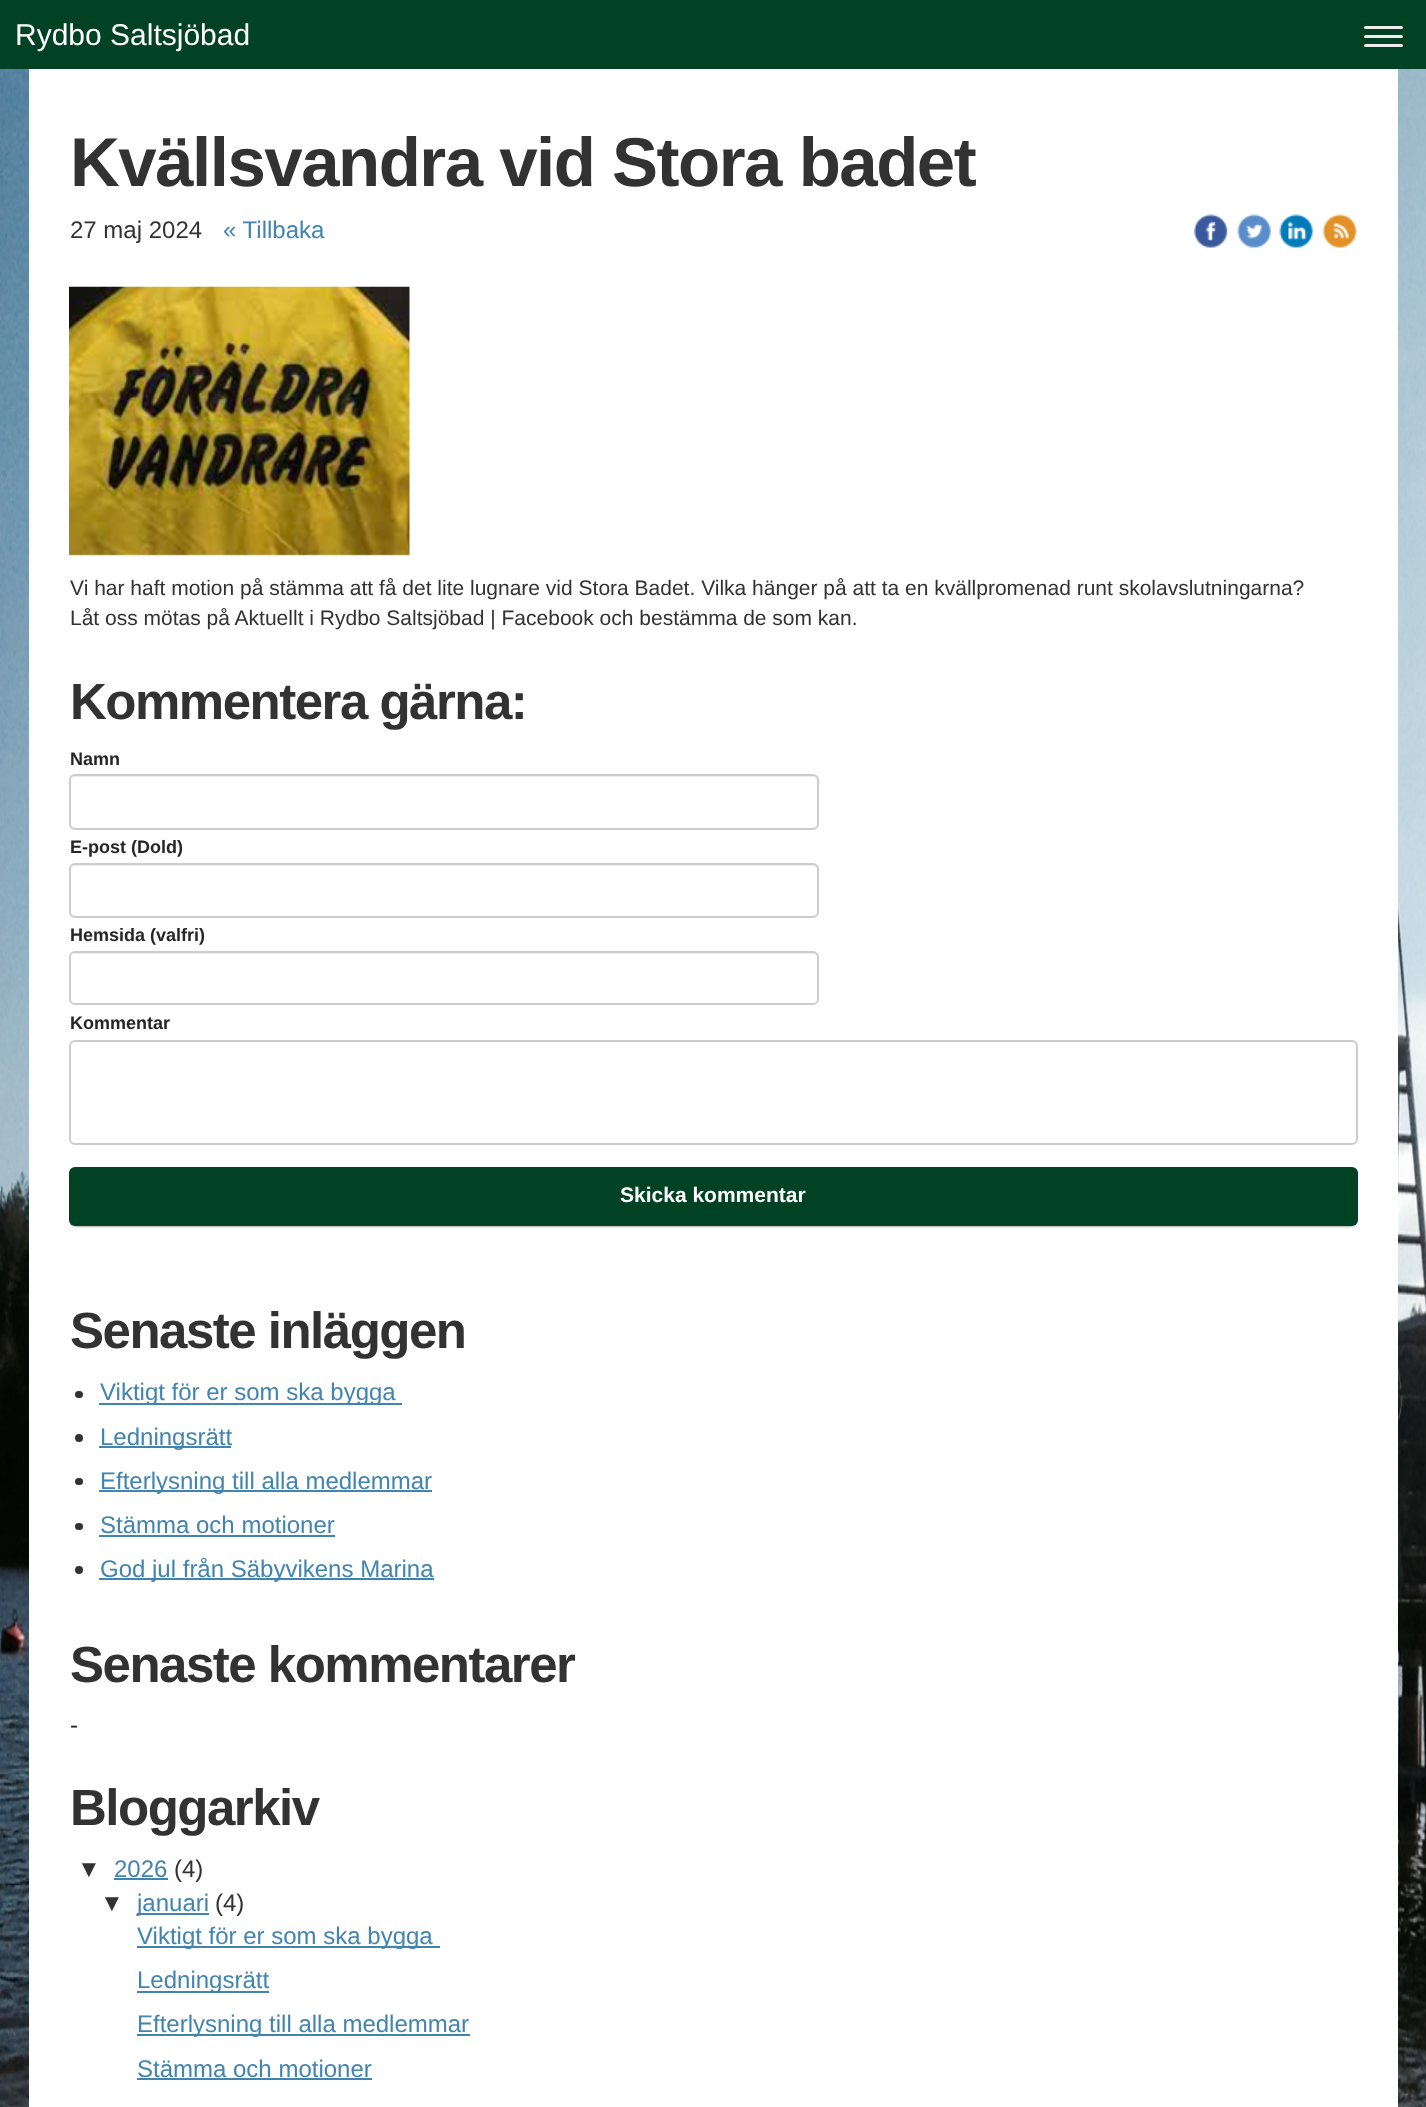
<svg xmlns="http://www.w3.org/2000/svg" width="1426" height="2107">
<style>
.a{font:30px Liberation Sans;fill:#fff}
.b{font:bold 69px Liberation Sans;letter-spacing:-1.5px;fill:#323232}
.c{font:24px Liberation Sans;fill:#323232}
.d{font:24px Liberation Sans;fill:#4284b0}
.e{font:21px Liberation Sans;fill:#323232}
.f{font:bold 51px Liberation Sans;letter-spacing:-1.5px;fill:#323232}
.g{font:bold 18px Liberation Sans;fill:#262626}
.h{font:bold 21px Liberation Sans;fill:#fff}
.i{font:24px Liberation Sans;fill:#262626}
</style>
<rect width="100%" height="100%" fill="#fff"/>
<image href="1.png" x="0" y="69" width="1426" height="2038"/>
<path fill="#014225" d="M0 0h1426v69H0z"/>
<rect fill="#eee" x="1364" y="26" width="39" height="3" rx="1.5"/>
<rect fill="#eee" x="1364" y="35" width="39" height="3" rx="1.5"/>
<rect fill="#eee" x="1364" y="44" width="39" height="3" rx="1.5"/>
<path fill="#fff" d="M29 69h1369v2038H29z"/>
<image href="2.png" x="1193" y="214" width="35" height="34"/>
<image href="3.png" x="1237" y="214" width="34" height="34"/>
<image href="4.png" x="1279" y="214" width="34" height="34"/>
<image href="5.png" x="1322" y="214" width="35" height="34"/>
<image href="6.png" x="69" y="286" width="341" height="270"/>
<path fill="#ececec" d="M75 777h738c2 0 5 2 5 5v-1c0-3-2-5-5-5h-737c-2 0-3 1-4 2z"/>
<rect fill="none" stroke="#ccc" stroke-width="2" x="70" y="775" width="748" height="54" rx="5"/>
<path fill="#ececec" d="M75 866h738c2 0 5 2 5 4v-1c0-3-2-5-5-5h-737c-2 0-4 2-5 4c1-1 3-2 4-2z"/>
<rect fill="none" stroke="#ccc" stroke-width="2" x="70" y="864" width="748" height="53" rx="5"/>
<path fill="#ececec" d="M75 954h738c2 0 5 2 5 4c0-3-2-5-5-5h-737c-2 0-3 1-4 2z"/>
<rect fill="none" stroke="#ccc" stroke-width="2" x="70" y="952" width="748" height="52" rx="5"/>
<path fill="#ececec" d="M75 1042h1277c2 0 4 3 4 5v-1c0-3-2-5-5-5h-1275c-2 0-4 1-5 3c1-1 3-2 4-2z"/>
<rect fill="none" stroke="#ccc" stroke-width="2" x="70" y="1041" width="1287" height="103" rx="5"/>
<rect fill="#00000099" filter="blur(1.5px)" x="71" y="1170" width="1285" height="56" rx="5"/>
<rect fill="#014225" x="69" y="1167" width="1289" height="59" rx="6"/>
<rect fill="#323232" x="75" y="1391" width="8" height="7" rx="3.5"/>
<path fill="#4284b0" d="M99 1403h303v2H99z"/>
<circle fill="#323232" cx="79" cy="1438" r="4"/>
<path fill="#4284b0" d="M99 1446h132v2H99z"/>
<rect fill="#323232" x="75" y="1478" width="8" height="7" rx="3.5"/>
<path fill="#4284b0" d="M99 1490h333v2H99z"/>
<rect fill="#323232" x="75" y="1523" width="8" height="7" rx="3.5"/>
<path fill="#4284b0" d="M99 1535h236v2H99z"/>
<circle fill="#323232" cx="79" cy="1570" r="4"/>
<path fill="#4284b0" d="M99 1578h335v2H99z"/>
<path fill="#4284b0" d="M114 1878h54v2H114z"/>
<path fill="#4284b0" d="M137 1913h72v2H137z"/>
<path fill="#4284b0" d="M137 1946h303v2H137z"/>
<path fill="#4284b0" d="M137 1991h132v2H137z"/>
<path fill="#4284b0" d="M137 2034h333v2H137z"/>
<path fill="#4284b0" d="M137 2078h235v2H137z"/>
<text class="a" x="15" y="45">Rydbo Saltsjöbad</text>
<text class="b" x="70" y="186">Kvällsvandra vid Stora badet</text>
<text class="c" x="70" y="238">27 maj 2024</text>
<text class="d" x="223" y="238">« Tillbaka</text>
<text class="e" x="70" y="595">Vi har haft motion på stämma att få det lite lugnare vid Stora Badet. Vilka hänger på att ta en kvällpromenad runt skolavslutningarna?</text>
<text class="e" x="70" y="625">Låt oss mötas på Aktuellt i Rydbo Saltsjöbad | Facebook och bestämma de som kan.</text>
<text class="f" x="70" y="719">Kommentera gärna:</text>
<text class="g" x="70" y="765">Namn</text>
<text class="g" x="70" y="853">E-post (Dold)</text>
<text class="g" x="70" y="941">Hemsida (valfri)</text>
<text class="g" x="70" y="1029">Kommentar</text>
<text class="h" x="620" y="1202">Skicka kommentar</text>
<text class="f" x="70" y="1348">Senaste inläggen</text>
<text class="d" x="100" y="1400">Viktigt för er som ska bygga</text>
<text class="d" x="100" y="1445">Ledningsrätt</text>
<text class="d" x="100" y="1489">Efterlysning till alla medlemmar</text>
<text class="d" x="100" y="1533">Stämma och motioner</text>
<text class="d" x="100" y="1577">God jul från Säbyvikens Marina</text>
<text class="f" x="70" y="1682">Senaste kommentarer</text>
<text class="i" x="70" y="1733">-</text>
<text class="f" x="70" y="1825">Bloggarkiv</text>
<text class="c" x="77" y="1877">▼</text>
<text class="d" x="114" y="1877">2026</text>
<text class="c" x="174" y="1877">(4)</text>
<text class="c" x="100" y="1911">▼</text>
<text class="d" x="137" y="1911">januari</text>
<text class="c" x="215" y="1911">(4)</text>
<text class="d" x="137" y="1944">Viktigt för er som ska bygga</text>
<text class="d" x="137" y="1988">Ledningsrätt</text>
<text class="d" x="137" y="2032">Efterlysning till alla medlemmar</text>
<text class="d" x="137" y="2077">Stämma och motioner</text>
</svg>
